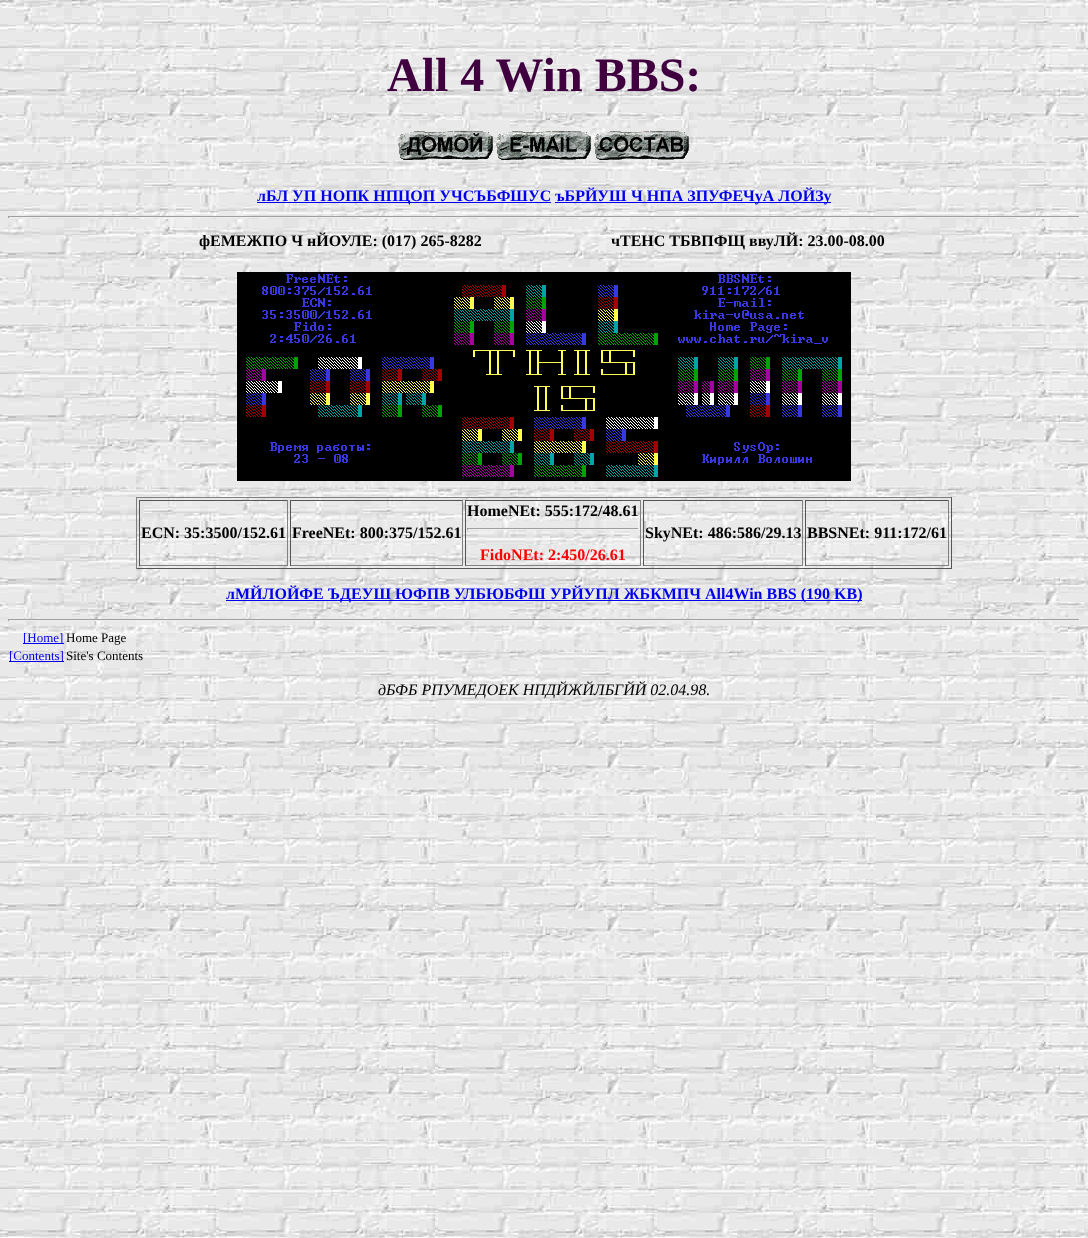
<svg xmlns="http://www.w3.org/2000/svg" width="1088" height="1238">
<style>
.a{font:bold 48px Liberation Serif;fill:#400040}
.b{font:bold 16px Liberation Serif;fill:#00e}
.c{font:bold 16px Liberation Serif;fill:#000}
.d{font:bold 16px Liberation Serif;fill:#f00}
.e{font:13px Liberation Serif;fill:#00e}
.f{font:13px Liberation Serif;fill:#000}
.g{font:italic 16px Liberation Serif;fill:#000}
</style>
<rect width="100%" height="100%" fill="#fff"/>
<image href="1.png" x="0" y="0" width="1088" height="1238"/>
<image href="2.png" x="398" y="131" width="95" height="29"/>
<image href="3.png" x="496" y="131" width="95" height="29"/>
<image href="4.png" x="594" y="131" width="95" height="29"/>
<path fill="#00e" d="M257 202h294v1H257z"/>
<path fill="#00e" d="M555 202h276v1H555z"/>
<path fill="#9f9f9f" d="M8 216h1072v1H8z"/>
<path fill="#eee" d="M1079 216h1v2H1079z"/>
<path fill="#eee" d="M8 217h1072v1H8z"/>
<path fill="#9f9f9f" d="M8 216h1v2H8z"/>
<image href="5.png" x="237" y="272" width="614" height="209"/>
<path fill="#808080" d="M136 497h816v1H136z"/>
<path fill="#555" d="M951 497h1v72H951z"/>
<path fill="#555" d="M136 568h816v1H136z"/>
<path fill="#808080" d="M136 497h1v72H136z"/>
<path fill="#555" d="M139 500h149v1H139z"/>
<path fill="#808080" d="M287 500h1v66H287z"/>
<path fill="#808080" d="M139 565h149v1H139z"/>
<path fill="#555" d="M139 500h1v66H139z"/>
<path fill="#555" d="M290 500h173v1H290z"/>
<path fill="#808080" d="M462 500h1v66H462z"/>
<path fill="#808080" d="M290 565h173v1H290z"/>
<path fill="#555" d="M290 500h1v66H290z"/>
<path fill="#555" d="M465 500h176v1H465z"/>
<path fill="#808080" d="M640 500h1v66H640z"/>
<path fill="#808080" d="M465 565h176v1H465z"/>
<path fill="#555" d="M465 500h1v66H465z"/>
<path fill="#9f9f9f" d="M467 528h172v1H467z"/>
<path fill="#eee" d="M638 528h1v2H638z"/>
<path fill="#eee" d="M467 529h172v1H467z"/>
<path fill="#9f9f9f" d="M467 528h1v2H467z"/>
<path fill="#555" d="M643 500h160v1H643z"/>
<path fill="#808080" d="M802 500h1v66H802z"/>
<path fill="#808080" d="M643 565h160v1H643z"/>
<path fill="#555" d="M643 500h1v66H643z"/>
<path fill="#555" d="M805 500h144v1H805z"/>
<path fill="#808080" d="M948 500h1v66H948z"/>
<path fill="#808080" d="M805 565h144v1H805z"/>
<path fill="#555" d="M805 500h1v66H805z"/>
<path fill="#00e" d="M226 600h636v1H226z"/>
<path fill="#9f9f9f" d="M8 619h1072v1H8z"/>
<path fill="#eee" d="M1079 619h1v2H1079z"/>
<path fill="#eee" d="M8 620h1072v1H8z"/>
<path fill="#9f9f9f" d="M8 619h1v2H8z"/>
<path fill="#00e" d="M23 643h41v1H23z"/>
<path fill="#00e" d="M9 661h55v1H9z"/>
<text class="a" x="387" y="91">All 4 Win BBS:</text>
<text class="b" x="257" y="201">лБЛ УП НОПК НПЦОП УЧСЪБФШУС ъБРЙУШ</text>
<text class="b" x="631" y="201">Ч НПА ЗПУФЕЧyА ЛОЙЗy</text>
<text class="c" x="199" y="246">фЕМЕЖПО Ч нЙОУЛЕ: (017) 265-8282</text>
<text class="c" x="611" y="246">чТЕНС ТБВПФЩ ввуЛЙ: 23.00-08.00</text>
<text class="c" x="141" y="538">ECN: 35:3500/152.61</text>
<text class="c" x="292" y="538">FreeNEt: 800:375/152.61</text>
<text class="c" x="467" y="516">HomeNEt: 555:172/48.61</text>
<text class="d" x="480" y="560">FidoNEt: 2:450/26.61</text>
<text class="c" x="645" y="538">SkyNEt: 486:586/29.13</text>
<text class="c" x="807" y="538">BBSNEt: 911:172/61</text>
<text class="b" x="226" y="599">лМЙЛОЙФЕ ЪДЕУШ ЮФПВ УЛБЮБФШ УРЙУПЛ ЖБКМПЧ All4Win BBS (190 KB)</text>
<text class="e" x="23" y="642">[Home]</text>
<text class="f" x="66" y="642">Home Page</text>
<text class="e" x="9" y="660">[Contents]</text>
<text class="f" x="66" y="660">Site's Contents</text>
<text class="g" x="378" y="695">дБФБ РПУМЕДОЕК НПДЙЖЙЛБГЙЙ 02.04.98.</text>
</svg>
